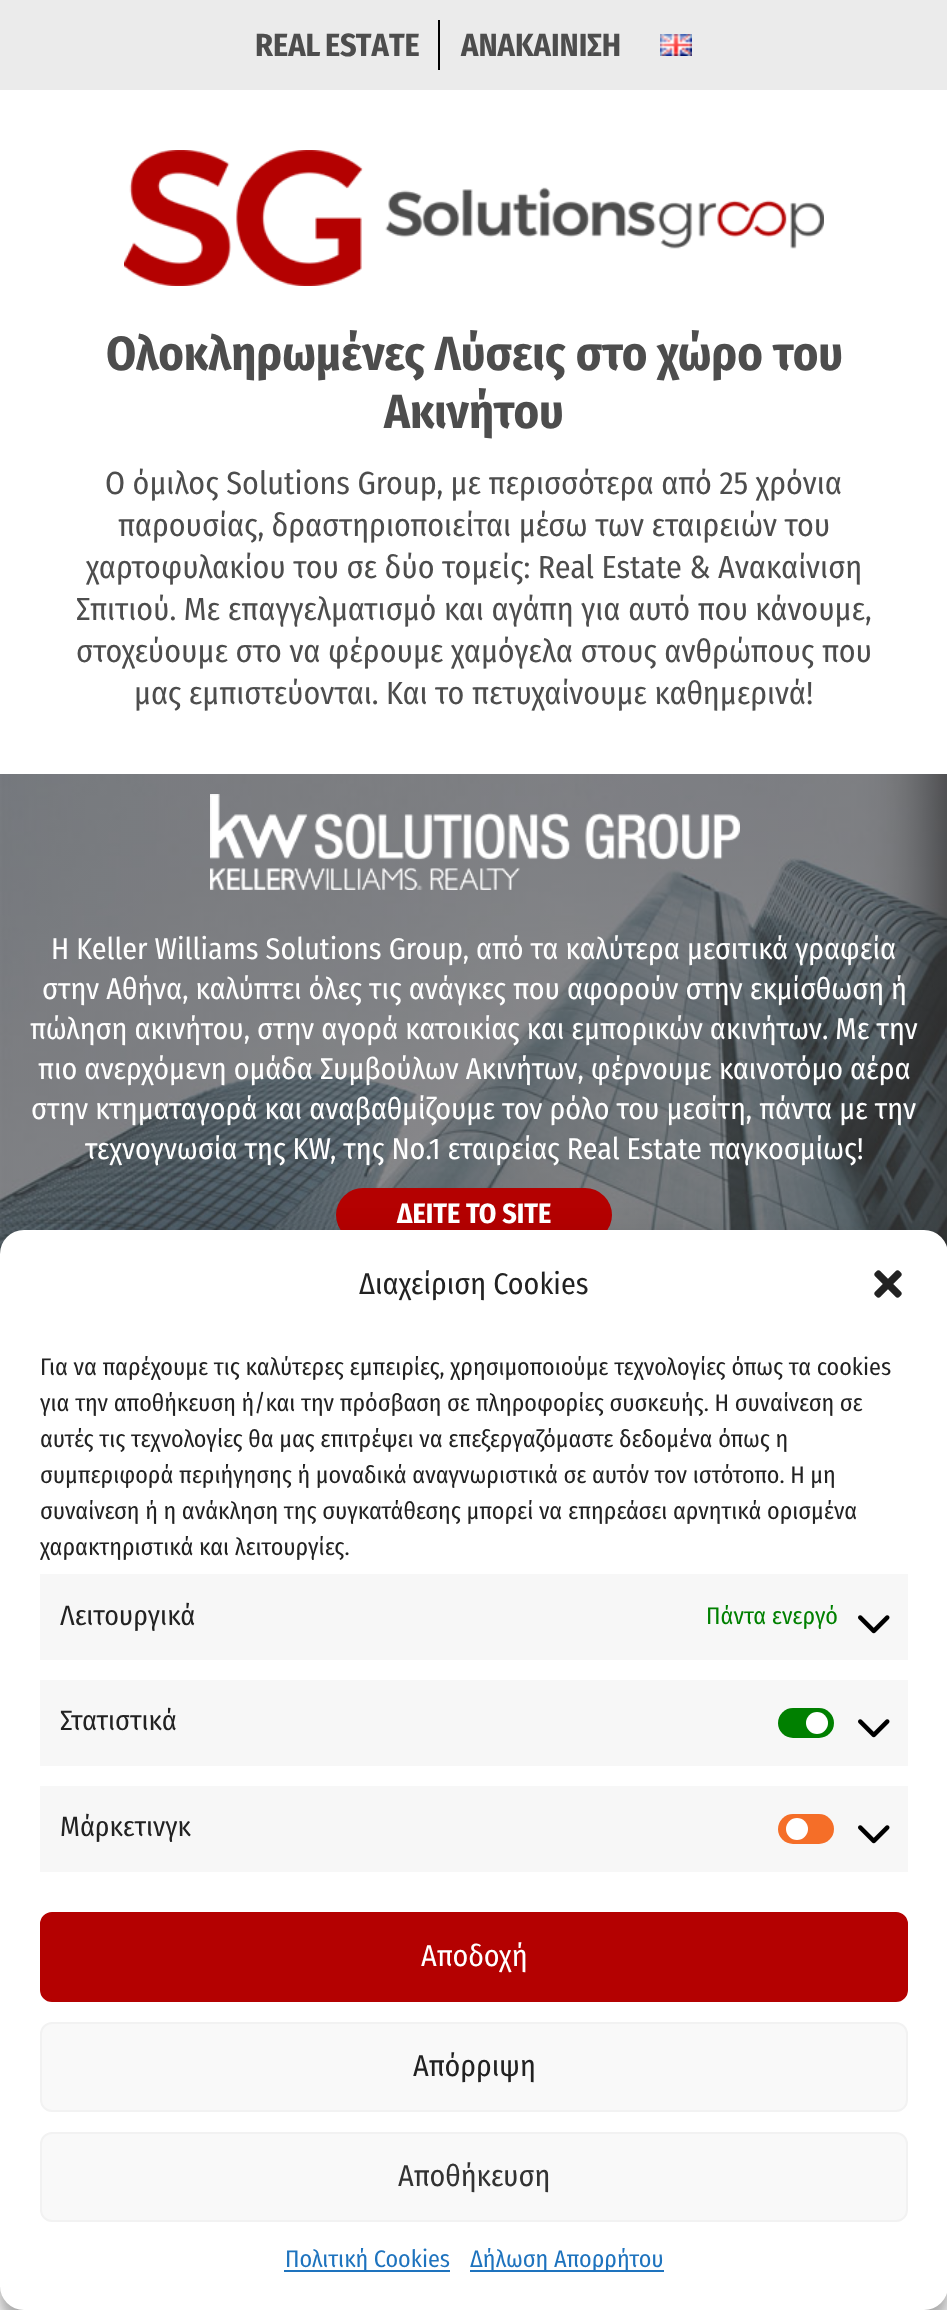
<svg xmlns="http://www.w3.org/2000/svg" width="947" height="2310">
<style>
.a{font:bold 32px Fira Sans Condensed;fill:#4d4d4d}
.b{font:bold 48px Fira Sans Condensed;fill:#4d4d4d}
.c{font:32px Fira Sans Condensed;fill:#4d4d4d}
.d{font:30px Fira Sans Condensed;fill:#fff}
.e{font:bold 28px Fira Sans Condensed;fill:#fff}
.f{font:30px Fira Sans Condensed;fill:#222}
.g{font:24px Fira Sans Condensed;fill:#222}
.h{font:28px Fira Sans Condensed;fill:#222}
.i{font:24px Fira Sans Condensed;fill:#008000}
.j{font:30px Fira Sans Condensed;fill:#333}
.k{font:24px Fira Sans Condensed;fill:#1e73be}
</style>
<rect width="100%" height="100%" fill="#fff"/>
<path fill="#ebebeb" d="M0 0h947v90H0z"/>
<path fill="#000" d="M438 20h2v50H438z"/>
<image href="1.png" x="660" y="34" width="32" height="22"/>
<image href="2.png" x="124" y="150" width="700" height="136"/>
<image href="3.png" x="0" y="774" width="947" height="480"/>
<image href="4.png" x="210" y="794" width="530" height="96"/>
<rect fill="#b40101" x="336" y="1188" width="276" height="54" rx="27"/>
<rect fill="#0000003b" filter="blur(6px)" y="1242" width="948" height="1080" rx="24"/>
<rect fill="#00000030" filter="blur(20px)" y="1250" width="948" height="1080" rx="24"/>
<rect fill="#fff" y="1230" width="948" height="1080" rx="24"/>
<image href="5.png" x="874" y="1270" width="28" height="28"/>
<path fill="#f7f7f7" d="M40 1574h868v86H40z"/>
<image href="6.png" x="858" y="1615" width="32" height="19"/>
<path fill="#f7f7f7" d="M40 1680h868v86H40z"/>
<rect fill="#008000" x="778" y="1708" width="56" height="30" rx="15"/>
<circle fill="#fff" cx="817" cy="1723" r="11"/>
<image href="6.png" x="858" y="1719" width="32" height="19"/>
<path fill="#f7f7f7" d="M40 1786h868v86H40z"/>
<rect fill="#f56e28" x="778" y="1814" width="56" height="30" rx="15"/>
<circle fill="#fff" cx="797" cy="1829" r="11"/>
<image href="6.png" x="858" y="1825" width="32" height="19"/>
<rect fill="#b40101" stroke="#b40101" stroke-width="2" x="41" y="1913" width="866" height="88" rx="11"/>
<rect fill="#f9f9f9" stroke="#f2f2f2" stroke-width="2" x="41" y="2023" width="866" height="88" rx="11"/>
<rect fill="#f9f9f9" stroke="#f2f2f2" stroke-width="2" x="41" y="2133" width="866" height="88" rx="11"/>
<path fill="#1e73be" d="M284 2270h166v2H284z"/>
<path fill="#1e73be" d="M470 2270h194v2H470z"/>
<text class="a" x="255" y="56" word-spacing="-2">REAL ESTATE</text>
<text class="a" x="461" y="56">ΑΝΑΚΑΙΝΙΣH</text>
<text class="b" x="106" y="370">Ολοκληρωμένες Λύσεις στο χώρο του</text>
<text class="b" x="384" y="428">Ακινήτου</text>
<text class="c" x="105" y="494">Ο όμιλος Solutions Group, με περισσότερα από 25 χρόνια</text>
<text class="c" x="118" y="536">παρουσίας, δραστηριοποιείται μέσω των εταιρειών του</text>
<text class="c" x="86" y="578">χαρτοφυλακίου του σε δύο τομείς: Real Estate &amp; Ανακαίνιση</text>
<text class="c" x="76" y="620">Σπιτιού. Με επαγγελματισμό και αγάπη για αυτό που κάνουμε,</text>
<text class="c" x="76" y="662">στοχεύουμε στο να φέρουμε χαμόγελα στους ανθρώπους που</text>
<text class="c" x="134" y="704">μας εμπιστεύονται. Και το πετυχαίνουμε καθημερινά!</text>
<text class="d" x="51" y="959">Η Keller Williams Solutions Group, από τα καλύτερα μεσιτικά γραφεία</text>
<text class="d" x="42" y="999">στην Αθήνα, καλύπτει όλες τις ανάγκες που αφορούν στην εκμίσθωση ή</text>
<text class="d" x="30" y="1039">πώληση ακινήτου, στην αγορά κατοικίας και εμπορικών ακινήτων. Με την</text>
<text class="d" x="38" y="1079">πιο ανερχόμενη ομάδα Συμβούλων Ακινήτων, φέρνουμε καινοτόμο αέρα</text>
<text class="d" x="31" y="1119">στην κτηματαγορά και αναβαθμίζουμε τον ρόλο του μεσίτη, πάντα με την</text>
<text class="d" x="85" y="1159">τεχνογνωσία της KW, της Νο.1 εταιρείας Real Estate παγκοσμίως!</text>
<text class="e" x="397" y="1223">ΔΕΙΤΕ ΤΟ SITE</text>
<text class="f" x="359" y="1294">Διαχείριση Cookies</text>
<text class="g" x="40" y="1375">Για να παρέχουμε τις καλύτερες εμπειρίες, χρησιμοποιούμε τεχνολογίες όπως τα cookies</text>
<text class="g" x="40" y="1411">για την αποθήκευση ή/και την πρόσβαση σε πληροφορίες συσκευής. Η συναίνεση σε</text>
<text class="g" x="40" y="1447">αυτές τις τεχνολογίες θα μας επιτρέψει να επεξεργαζόμαστε δεδομένα όπως η</text>
<text class="g" x="40" y="1483">συμπεριφορά περιήγησης ή μοναδικά αναγνωριστικά σε αυτόν τον ιστότοπο. Η μη</text>
<text class="g" x="40" y="1519">συναίνεση ή η ανάκληση της συγκατάθεσης μπορεί να επηρεάσει αρνητικά ορισμένα</text>
<text class="g" x="40" y="1555">χαρακτηριστικά και λειτουργίες.</text>
<text class="h" x="60" y="1625">Λειτουργικά</text>
<text class="i" x="706" y="1624">Πάντα ενεργό</text>
<text class="h" x="60" y="1730">Στατιστικά</text>
<text class="h" x="60" y="1836">Μάρκετινγκ</text>
<text class="d" x="421" y="1966">Αποδοχή</text>
<text class="f" x="413" y="2076">Απόρριψη</text>
<text class="j" x="398" y="2186">Αποθήκευση</text>
<text class="k" x="285" y="2267">Πολιτική Cookies</text>
<text class="k" x="470" y="2267">Δήλωση Απορρήτου</text>
</svg>
